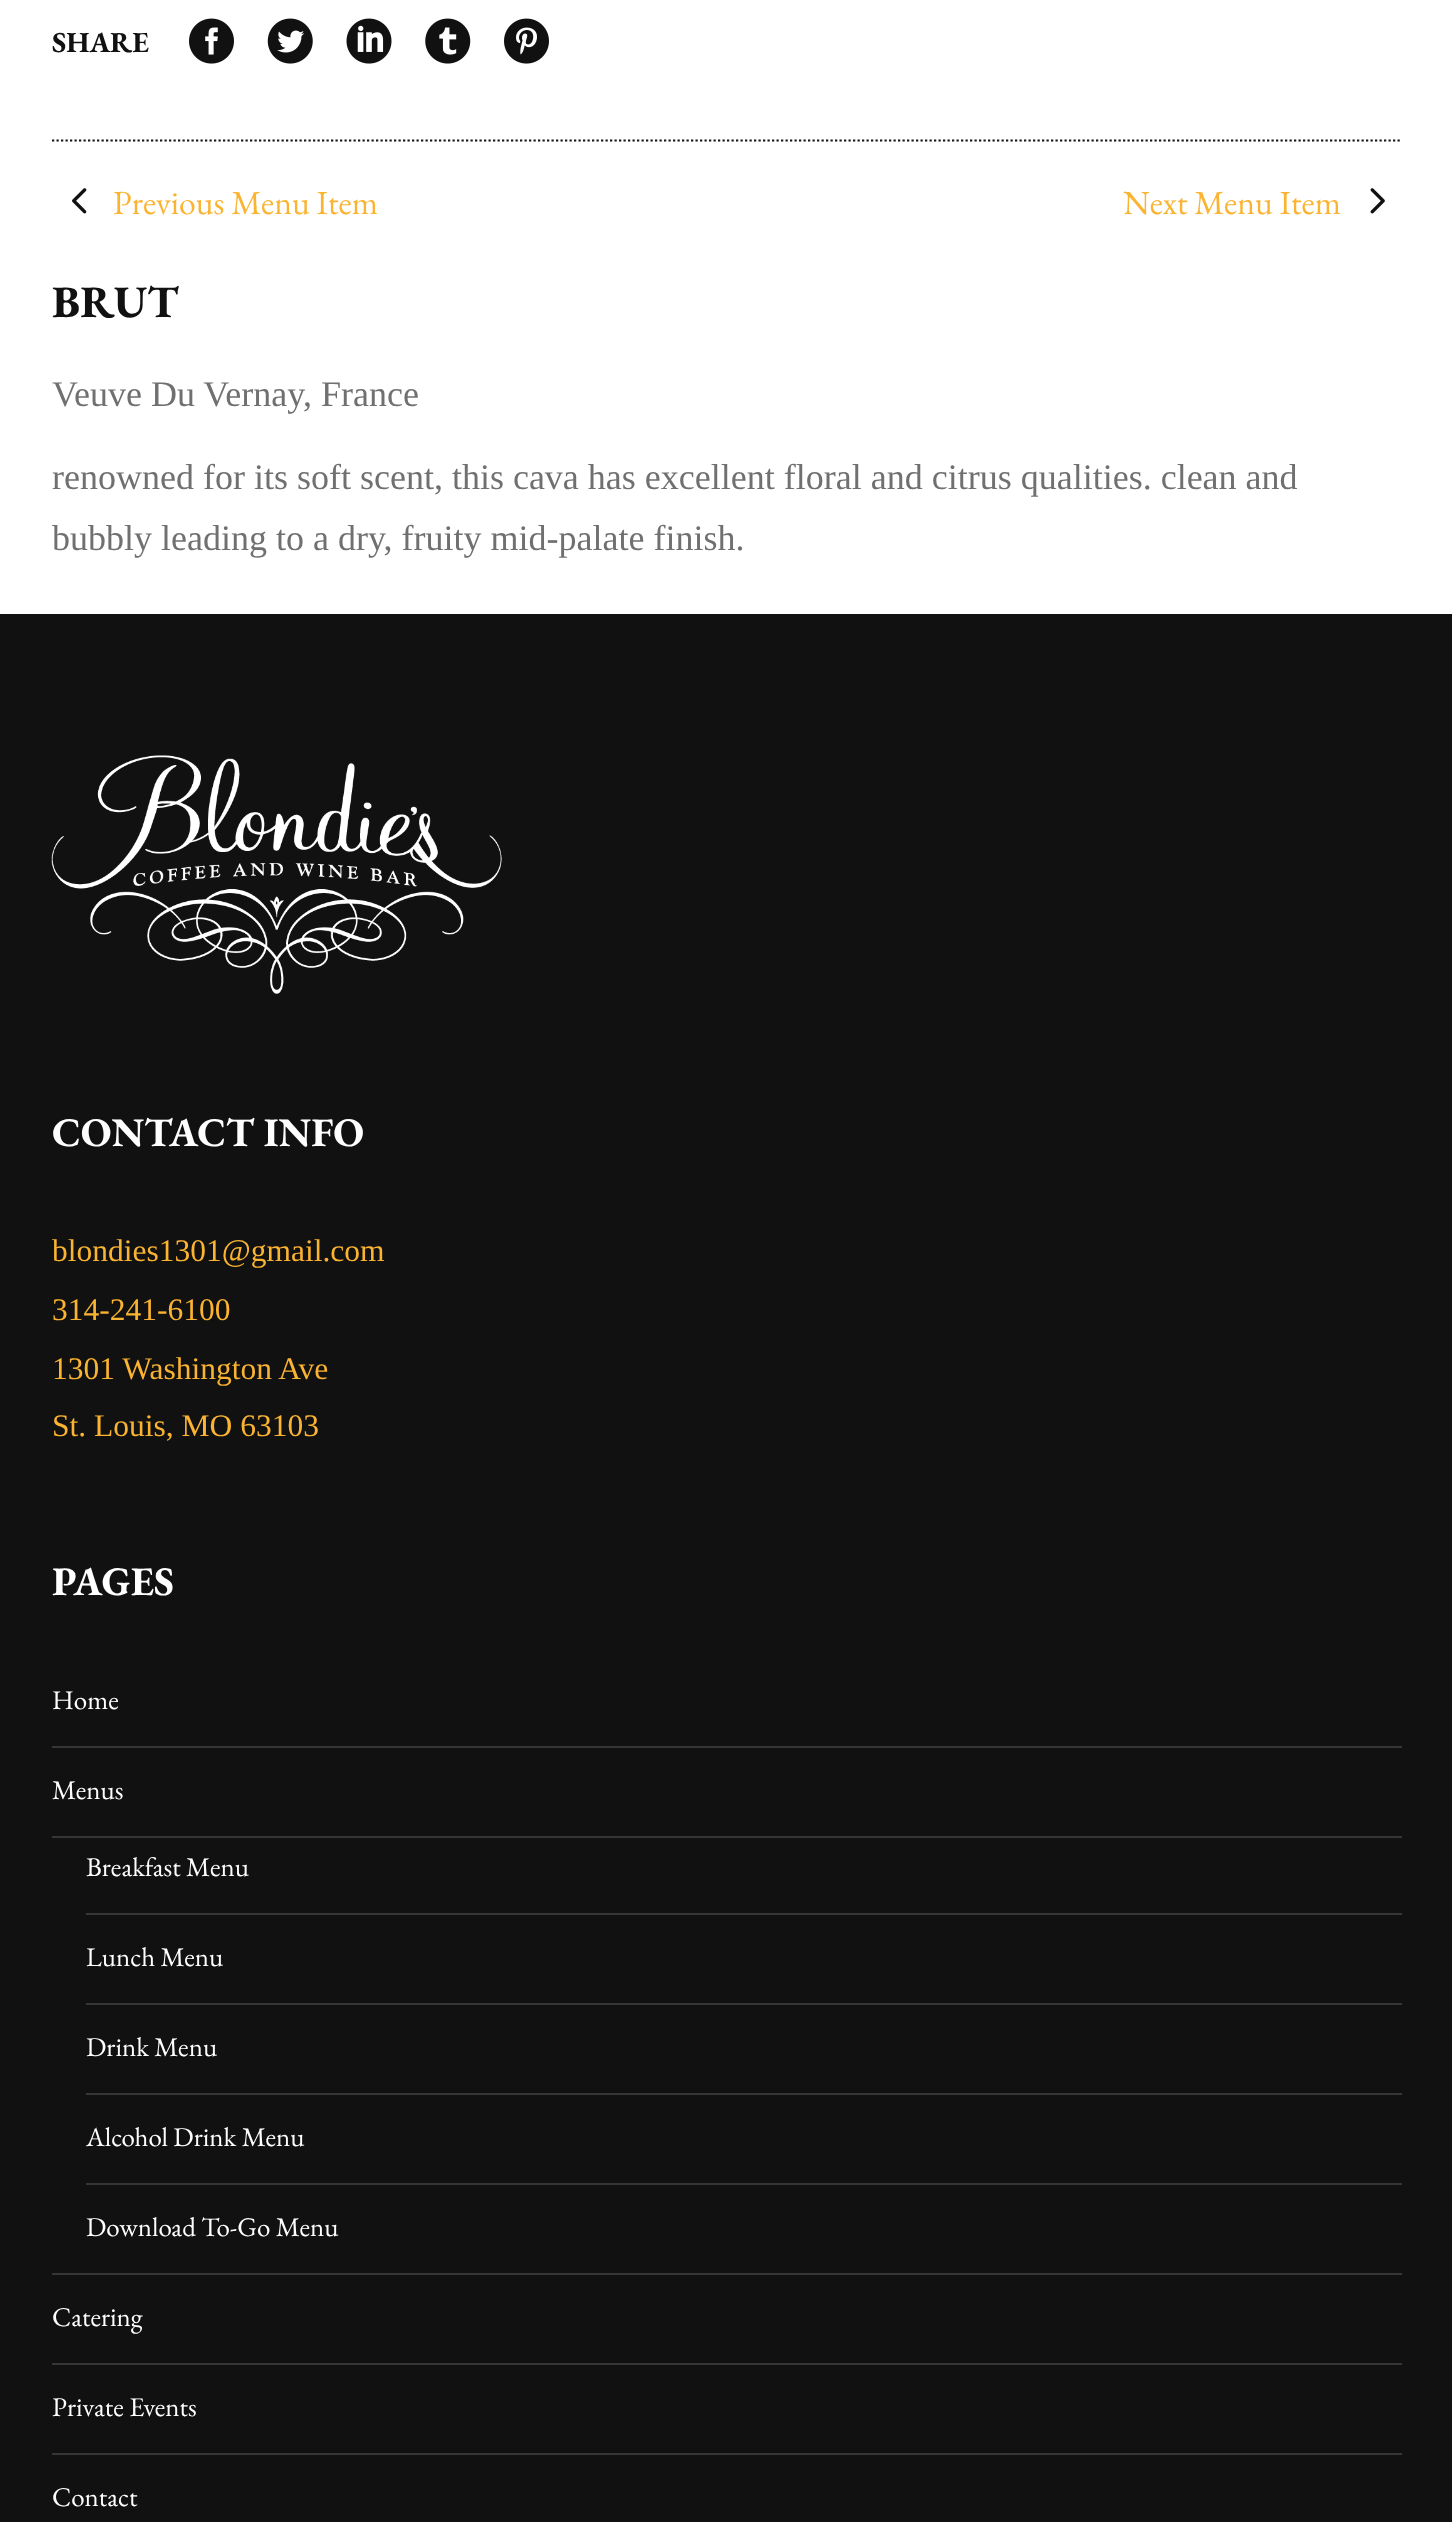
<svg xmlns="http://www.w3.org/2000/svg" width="1452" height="2522">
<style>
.a{font:bold 29px EB Garamond;fill:#111}
.b{font:33.75px EB Garamond;fill:#fbb431}
.c{font:bold 45px EB Garamond;fill:#111}
.d{font:36px Liberation Serif;fill:#707070}
.e{font:bold 40.5px EB Garamond;fill:#fff}
.f{font:31.5px Liberation Serif;fill:#fbb431}
.g{font:27px EB Garamond;fill:#fff}
</style>
<rect width="100%" height="100%" fill="#fff"/>
<path fill="none" stroke="#111" stroke-width="2.2" stroke-dasharray="2.25 2.25" d="M52 140.5h1350"/>
<image href="1.png" x="189" y="18" width="45" height="46"/>
<image href="2.png" x="267" y="18" width="46" height="46"/>
<image href="3.png" x="346" y="18" width="46" height="46"/>
<image href="4.png" x="425" y="18" width="46" height="46"/>
<image href="5.png" x="504" y="18" width="45" height="46"/>
<image href="6.png" x="72" y="188" width="15" height="26"/>
<image href="7.png" x="1370" y="188" width="15" height="26"/>
<path fill="#111" d="M0 614h1452v1908H0z"/>
<image href="8.png" x="51" y="755" width="451" height="239"/>
<path fill="#363636" d="M52 1746h1350v2H52z"/>
<path fill="#363636" d="M52 2273h1350v2H52z"/>
<path fill="#363636" d="M52 1836h1350v2H52z"/>
<path fill="#363636" d="M86 1913h1316v2H86z"/>
<path fill="#363636" d="M86 2003h1316v2H86z"/>
<path fill="#363636" d="M86 2093h1316v2H86z"/>
<path fill="#363636" d="M86 2183h1316v2H86z"/>
<path fill="#363636" d="M52 2363h1350v2H52z"/>
<path fill="#363636" d="M52 2453h1350v2H52z"/>
<text class="a" x="52" y="52">SHARE</text>
<text class="b" x="113" y="214">Previous Menu Item</text>
<text class="b" x="1123" y="214">Next Menu Item</text>
<text class="c" x="52" y="317">BRUT</text>
<text class="d" x="52" y="406">Veuve Du Vernay, France</text>
<text class="d" x="52" y="489">renowned for its soft scent, this cava has excellent floral and citrus qualities. clean and</text>
<text class="d" x="52" y="550">bubbly leading to a dry, fruity mid-palate finish.</text>
<text class="e" x="52" y="1146">CONTACT INFO</text>
<text class="f" x="52" y="1261">blondies1301@gmail.com</text>
<text class="f" x="52" y="1320">314-241-6100</text>
<text class="f" x="52" y="1379">1301 Washington Ave</text>
<text class="f" x="52" y="1436">St. Louis, MO 63103</text>
<text class="e" x="52" y="1595">PAGES</text>
<text class="g" x="52" y="1709">Home</text>
<text class="g" x="52" y="1799">Menus</text>
<text class="g" x="86" y="1876">Breakfast Menu</text>
<text class="g" x="86" y="1966">Lunch Menu</text>
<text class="g" x="86" y="2056">Drink Menu</text>
<text class="g" x="86" y="2146">Alcohol Drink Menu</text>
<text class="g" x="86" y="2236">Download To-Go Menu</text>
<text class="g" x="52" y="2326">Catering</text>
<text class="g" x="52" y="2416">Private Events</text>
<text class="g" x="52" y="2506">Contact</text>
</svg>
